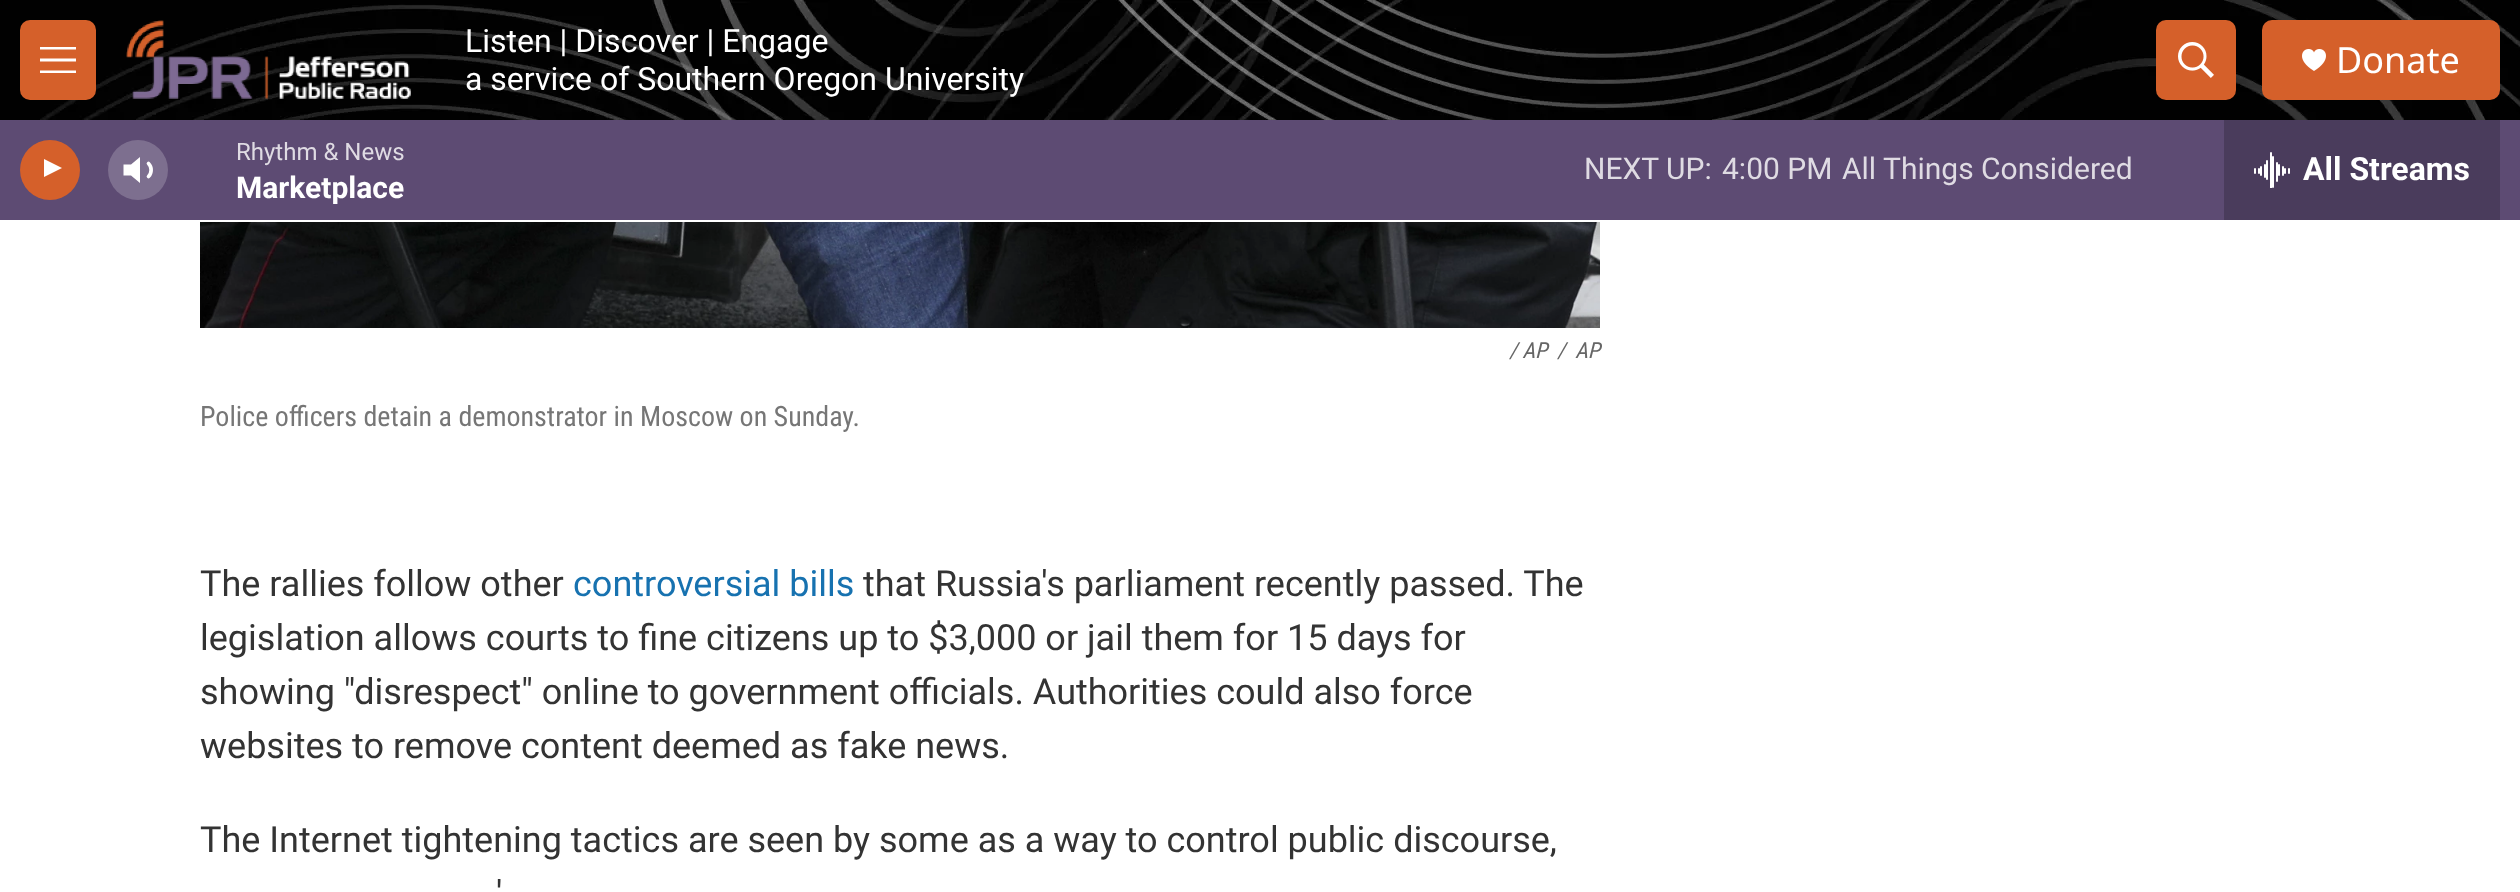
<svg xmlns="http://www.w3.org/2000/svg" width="2520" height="892">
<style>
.a{font:32px Roboto;fill:#fff}
.b{font:36px Noto Sans;fill:#fff}
.c{font:24px Roboto;fill:#dfdbe3}
.d{font:bold 30px Roboto;fill:#fff}
.e{font:30px Roboto;fill:#dfdbe3}
.f{font:bold 32px Roboto;fill:#fff}
.g{font:italic 22px Roboto Condensed;fill:#666}
.h{font:28px Roboto Condensed;fill:#767676}
.i{font:36px Roboto;fill:#333}
.j{font:36px Roboto;fill:#1772b0}
</style>
<defs>
<clipPath id="clip1"><path d="M44 156h23v30H44z"/></clipPath>
</defs>
<rect width="100%" height="100%" fill="#fff"/>
<image href="1.png" x="0" y="0" width="2520" height="120"/>
<rect fill="#d5602a" x="20" y="20" width="76" height="80" rx="10"/>
<path fill="#fff" fill-rule="evenodd" d="M40 61.5v-3h36v3zm0-12v-2.5h36v2.5zm0 23.5v-2.5h36v2.5z"/>
<image href="2.png" x="126" y="20" width="285" height="79"/>
<rect fill="#d5602a" x="2156" y="20" width="80" height="80" rx="10"/>
<image href="3.png" x="2178" y="42" width="36" height="36"/>
<rect fill="#d5602a" x="2262" y="20" width="238" height="80" rx="10"/>
<image href="4.png" x="2302" y="49" width="24" height="22"/>
<path fill="#5d4b73" d="M0 120h2520v100H0z"/>
<circle fill="#d5602a" cx="50" cy="170" r="30"/>
<g clip-path="url(#clip1)">
<path fill="#fff" d="M43 158.5l19 9.5l-19 9.5z"/>
</g>
<path fill="#fff" d="M140 157l-9 7.5h-7.5v11h7.5l9 7.5z"/>
<path fill="none" stroke="#fff" stroke-width="3.7" stroke-linecap="round" stroke-linejoin="round" d="M148.5 163.5c3.5 3.5 3.5 9.5 0 13"/>
<circle fill="#ffffff33" cx="138" cy="170" r="30"/>
<path fill="#4a3c5c" d="M2224 120h276v100H2224z"/>
<image href="5.png" x="2254" y="152" width="36" height="36"/>
<image href="6.png" x="200" y="222" width="1400" height="106"/>
<text class="a" x="465" y="52">Listen | Discover | Engage</text>
<text class="a" x="465" y="90">a service of Southern Oregon University</text>
<text class="b" x="2336" y="73">Donate</text>
<text class="c" x="236" y="160">Rhythm &amp; News</text>
<text class="d" x="236" y="198">Marketplace</text>
<text class="e" x="1584" y="179">NEXT UP:</text>
<text class="e" x="1722" y="179">4:00 PM</text>
<text class="e" x="1842" y="179">All Things Considered</text>
<text class="f" x="2303" y="180">All Streams</text>
<text class="g" x="1509" y="358">/ AP</text>
<text class="g" x="1557" y="358">/</text>
<text class="g" x="1575" y="358">AP</text>
<text class="h" x="200" y="426">Police officers detain a demonstrator in Moscow on Sunday.</text>
<text class="i" x="200" y="596">The rallies follow other</text>
<text class="j" x="573" y="596">controversial bills</text>
<text class="i" x="863" y="596">that Russia's parliament recently passed. The</text>
<text class="i" x="200" y="650">legislation allows courts to fine citizens up to $3,000 or jail them for 15 days for</text>
<text class="i" x="200" y="704">showing "disrespect" online to government officials. Authorities could also force</text>
<text class="i" x="200" y="758">websites to remove content deemed as fake news.</text>
<text class="i" x="200" y="852">The Internet tightening tactics are seen by some as a way to control public discourse,</text>
<text class="i" x="496" y="906">'</text>
</svg>
